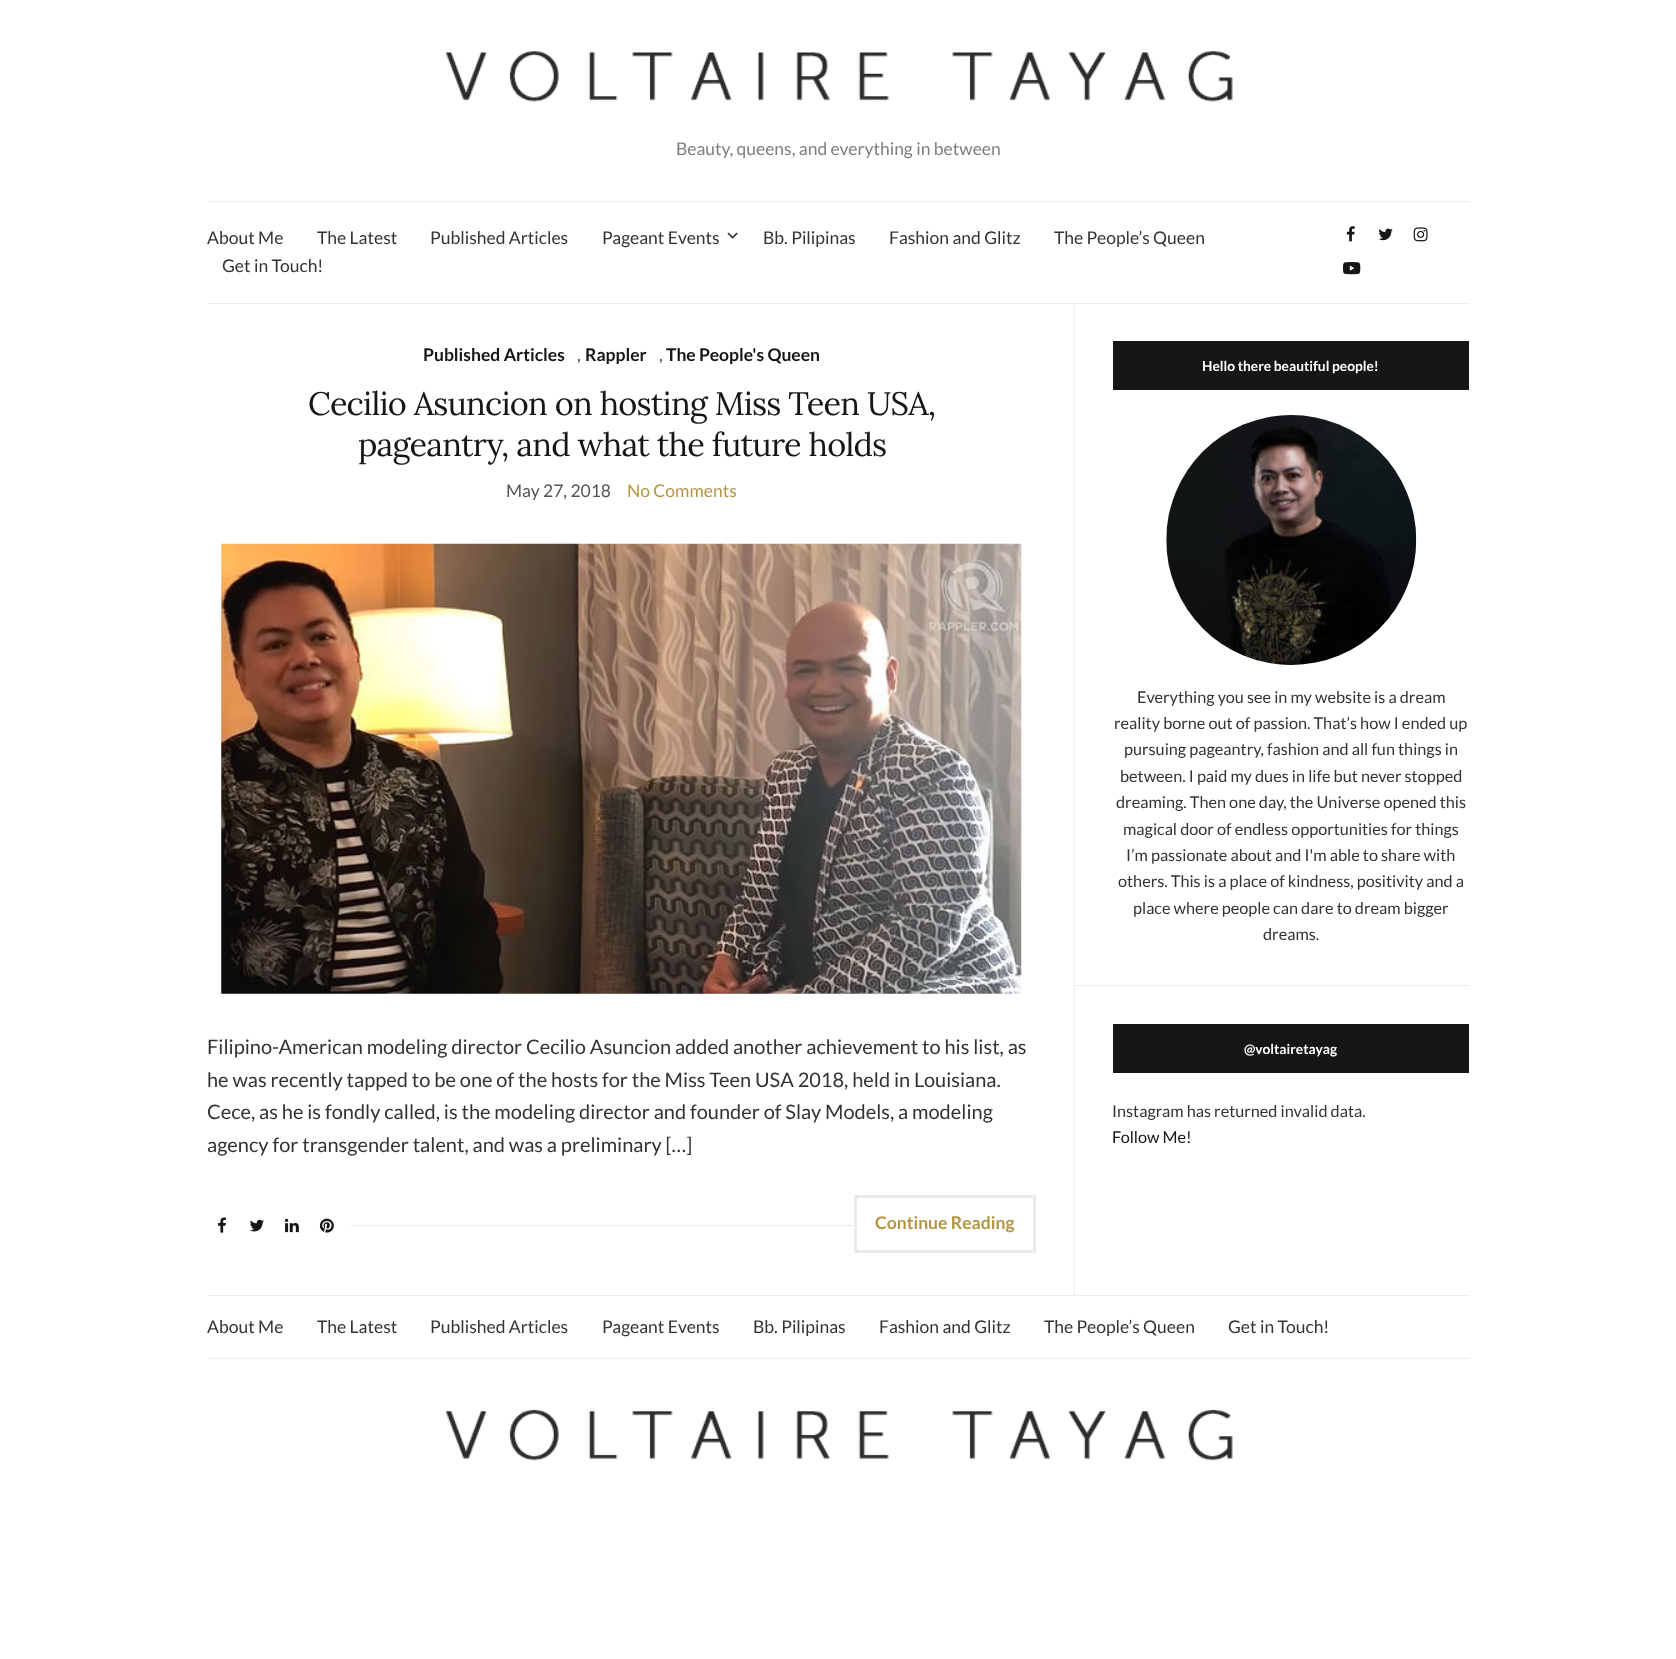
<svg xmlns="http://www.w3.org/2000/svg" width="1676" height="1659">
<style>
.a{font:17.5px Lato;fill:#7e7e7e}
.b{font:17.5px Lato;fill:#333}
.c{font:bold 17.5px Lato;fill:#161616}
.d{font:17.5px Lato;fill:#545454}
.e{font:32.5px Lora;letter-spacing:-0.8px;fill:#161616}
.f{font:17.5px Lato;fill:#b49543}
.g{font:20px Lato;fill:#333}
.h{font:bold 17.5px Lato;fill:#b49543}
.i{font:bold 13.75px Lato;fill:#fff}
.j{font:16.25px Lato;fill:#333}
.k{font:16.25px Lato;fill:#161616}
</style>
<rect width="100%" height="100%" fill="#fff"/>
<image href="1.png" x="446" y="51" width="787" height="51"/>
<path fill="#ebebeb" d="M208 201h1262v1H208z"/>
<path fill="#ebebeb" d="M208 303h1262v1H208z"/>
<image href="2.png" x="727" y="232" width="11" height="7"/>
<image href="3.png" x="1346" y="226" width="9" height="16"/>
<image href="4.png" x="1378" y="228" width="15" height="13"/>
<image href="5.png" x="1413" y="227" width="15" height="15"/>
<image href="6.png" x="1343" y="262" width="18" height="13"/>
<image href="7.png" x="221" y="543" width="801" height="451"/>
<image href="8.png" x="218" y="1217" width="8" height="16"/>
<image href="9.png" x="250" y="1219" width="14" height="13"/>
<image href="10.png" x="284" y="1218" width="15" height="15"/>
<image href="11.png" x="319" y="1218" width="15" height="15"/>
<path fill="#ebebeb" d="M351 1225h503v1H351z"/>
<path fill="none" stroke="#ebebeb" stroke-width="3" d="M855.5 1196.5h179v55H855.5z"/>
<path fill="#ebebeb" d="M1074 304h1v991H1074z"/>
<path fill="#ebebeb" d="M1075 985h394v1H1075z"/>
<path fill="#161616" d="M1113 341h356v49H1113z"/>
<image href="12.png" x="1166" y="415" width="251" height="250"/>
<path fill="#161616" d="M1113 1024h356v49H1113z"/>
<path fill="#ebebeb" d="M208 1295h1262v1H208z"/>
<path fill="#ebebeb" d="M208 1358h1262v1H208z"/>
<image href="13.png" x="446" y="1409" width="787" height="52"/>
<text class="a" x="676" y="155">Beauty, queens, and everything in between</text>
<text class="b" x="207" y="244">About Me</text>
<text class="b" x="317" y="244">The Latest</text>
<text class="b" x="430" y="244">Published Articles</text>
<text class="b" x="602" y="244">Pageant Events</text>
<text class="b" x="763" y="244">Bb. Pilipinas</text>
<text class="b" x="889" y="244">Fashion and Glitz</text>
<text class="b" x="1054" y="244">The People’s Queen</text>
<text class="b" x="222" y="272">Get in Touch!</text>
<text class="c" x="423" y="361">Published Articles</text>
<text class="d" x="577" y="361">,</text>
<text class="c" x="585" y="361">Rappler</text>
<text class="d" x="659" y="361">,</text>
<text class="c" x="666" y="361">The People's Queen</text>
<text class="e" x="308" y="415">Cecilio Asuncion on hosting Miss Teen USA,</text>
<text class="e" x="358" y="456">pageantry, and what the future holds</text>
<text class="d" x="506" y="497">May 27, 2018</text>
<text class="f" x="627" y="497">No Comments</text>
<text class="g" x="207" y="1054">Filipino-American modeling director Cecilio Asuncion added another achievement to his list, as</text>
<text class="g" x="207" y="1087">he was recently tapped to be one of the hosts for the Miss Teen USA 2018, held in Louisiana.</text>
<text class="g" x="207" y="1119">Cece, as he is fondly called, is the modeling director and founder of Slay Models, a modeling</text>
<text class="g" x="207" y="1152">agency for transgender talent, and was a preliminary […]</text>
<text class="h" x="875" y="1229">Continue Reading</text>
<text class="i" x="1202" y="371">Hello there beautiful people!</text>
<text class="j" x="1137" y="703">Everything you see in my website is a dream</text>
<text class="j" x="1114" y="729">reality borne out of passion. That’s how I ended up</text>
<text class="j" x="1124" y="755">pursuing pageantry, fashion and all fun things in</text>
<text class="j" x="1120" y="782">between. I paid my dues in life but never stopped</text>
<text class="j" x="1116" y="808">dreaming. Then one day, the Universe opened this</text>
<text class="j" x="1123" y="835">magical door of endless opportunities for things</text>
<text class="j" x="1126" y="861">I’m passionate about and I'm able to share with</text>
<text class="j" x="1118" y="887">others. This is a place of kindness, positivity and a</text>
<text class="j" x="1133" y="914">place where people can dare to dream bigger</text>
<text class="j" x="1263" y="940">dreams.</text>
<text class="i" x="1244" y="1054">@voltairetayag</text>
<text class="j" x="1112" y="1117">Instagram has returned invalid data.</text>
<text class="k" x="1112" y="1143">Follow Me!</text>
<text class="b" x="207" y="1333">About Me</text>
<text class="b" x="317" y="1333">The Latest</text>
<text class="b" x="430" y="1333">Published Articles</text>
<text class="b" x="602" y="1333">Pageant Events</text>
<text class="b" x="753" y="1333">Bb. Pilipinas</text>
<text class="b" x="879" y="1333">Fashion and Glitz</text>
<text class="b" x="1044" y="1333">The People’s Queen</text>
<text class="b" x="1228" y="1333">Get in Touch!</text>
</svg>
